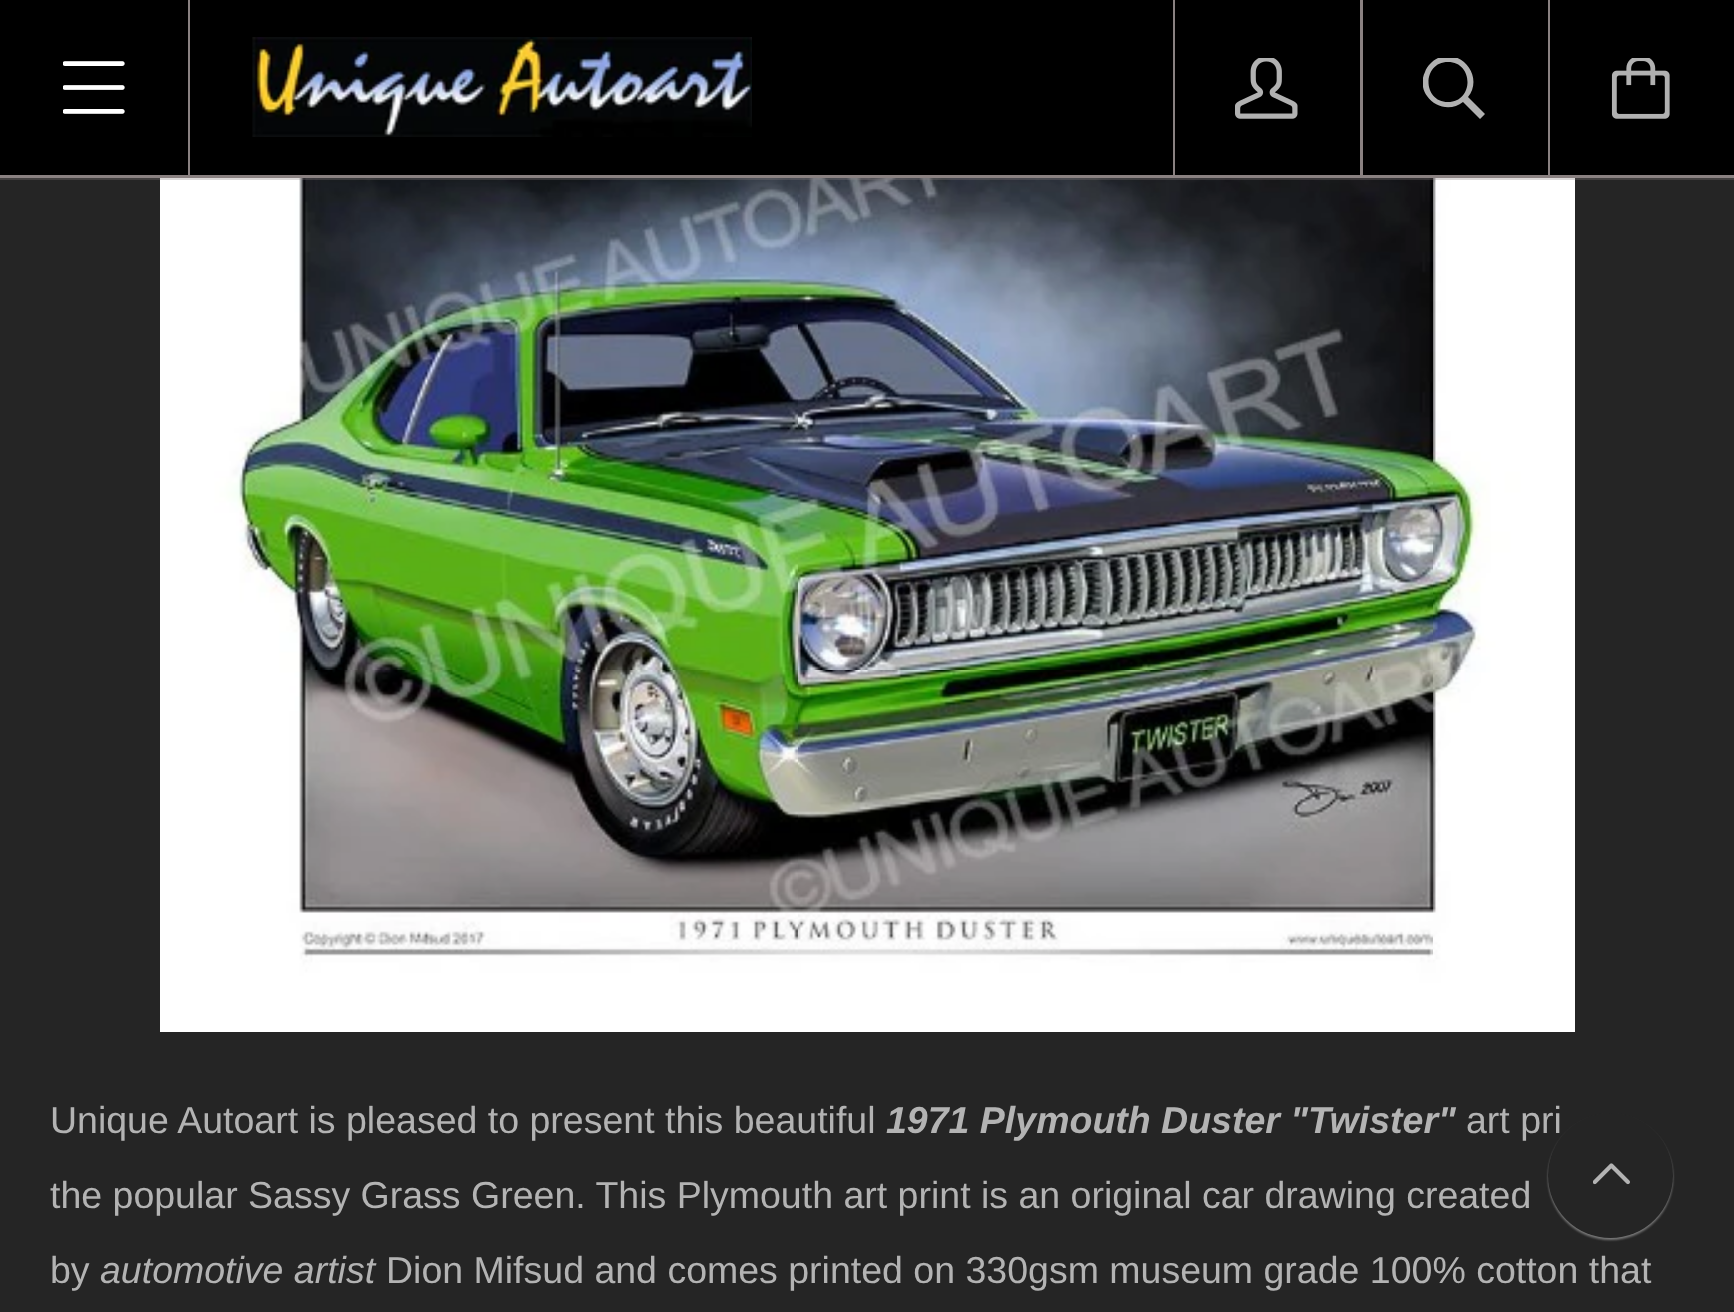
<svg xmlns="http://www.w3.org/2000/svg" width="1734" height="1312">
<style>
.a{font:37.5px Liberation Sans;fill:#b3b3b3}
.b{font:italic bold 37.5px Liberation Sans;fill:#b3b3b3}
.c{font:italic 37.5px Liberation Sans;fill:#b3b3b3}
</style>
<defs>
<clipPath id="clip1"><path d="M1423 58h62v61H1423z"/></clipPath>
</defs>
<rect width="100%" height="100%" fill="#252525"/>
<image href="5.png" x="160" y="178" width="1415" height="854"/>
<path fill="#8a81814d" d="M0 178h1734v2H0z"/>
<path fill="#000" d="M0 0h1548v175H0z"/>
<path fill="#8a8181" d="M0 175h1734v3H0z"/>
<image href="1.png" x="63" y="61" width="62" height="53"/>
<path fill="#8a8181" d="M188 0h2v175H188z"/>
<image href="2.png" x="252" y="37" width="500" height="100"/>
<path fill="#8a8181" d="M1173 0h2v175H1173z"/>
<image href="3.png" x="1235" y="58" width="63" height="61"/>
<path fill="#8a8181" d="M1360 0h3v175H1360z"/>
<g clip-path="url(#clip1)">
<path fill="#b1b1b1" d="M1485 114l-5 5l-17-17c-11 9-28 6-36-6c-5-7-6-16-2-24c2-6 7-11 13-14c24-10 46 19 30 39zm-37-52c-26 0-26 40 0 40c26 0 26-40 0-40z"/>
</g>
<path fill="#8a8181" d="M1548 0h2v175H1548z"/>
<path fill="#000" d="M1550 0h184v175H1550z"/>
<image href="4.png" x="1611" y="58" width="59" height="61"/>
<rect fill="#b3b3b399" filter="blur(1px)" x="1548" y="1115" width="125" height="125" rx="62.5"/>
<text class="a" x="50" y="1133">Unique Autoart is pleased to present this beautiful</text>
<text class="b" x="886" y="1133">1971 Plymouth Duster "Twister"</text>
<text class="a" x="1466" y="1133">art pri</text>
<text class="a" x="50" y="1208">the popular Sassy Grass Green. This Plymouth art print is an original car drawing created</text>
<text class="a" x="50" y="1283">by</text>
<text class="c" x="100" y="1283">automotive artist</text>
<text class="a" x="386" y="1283">Dion Mifsud and comes printed on 330gsm museum grade 100% cotton that</text>
<circle fill="#252525" cx="1610.5" cy="1175.5" r="62.5"/>
<image href="6.png" x="1593" y="1163" width="37" height="22"/>
</svg>
